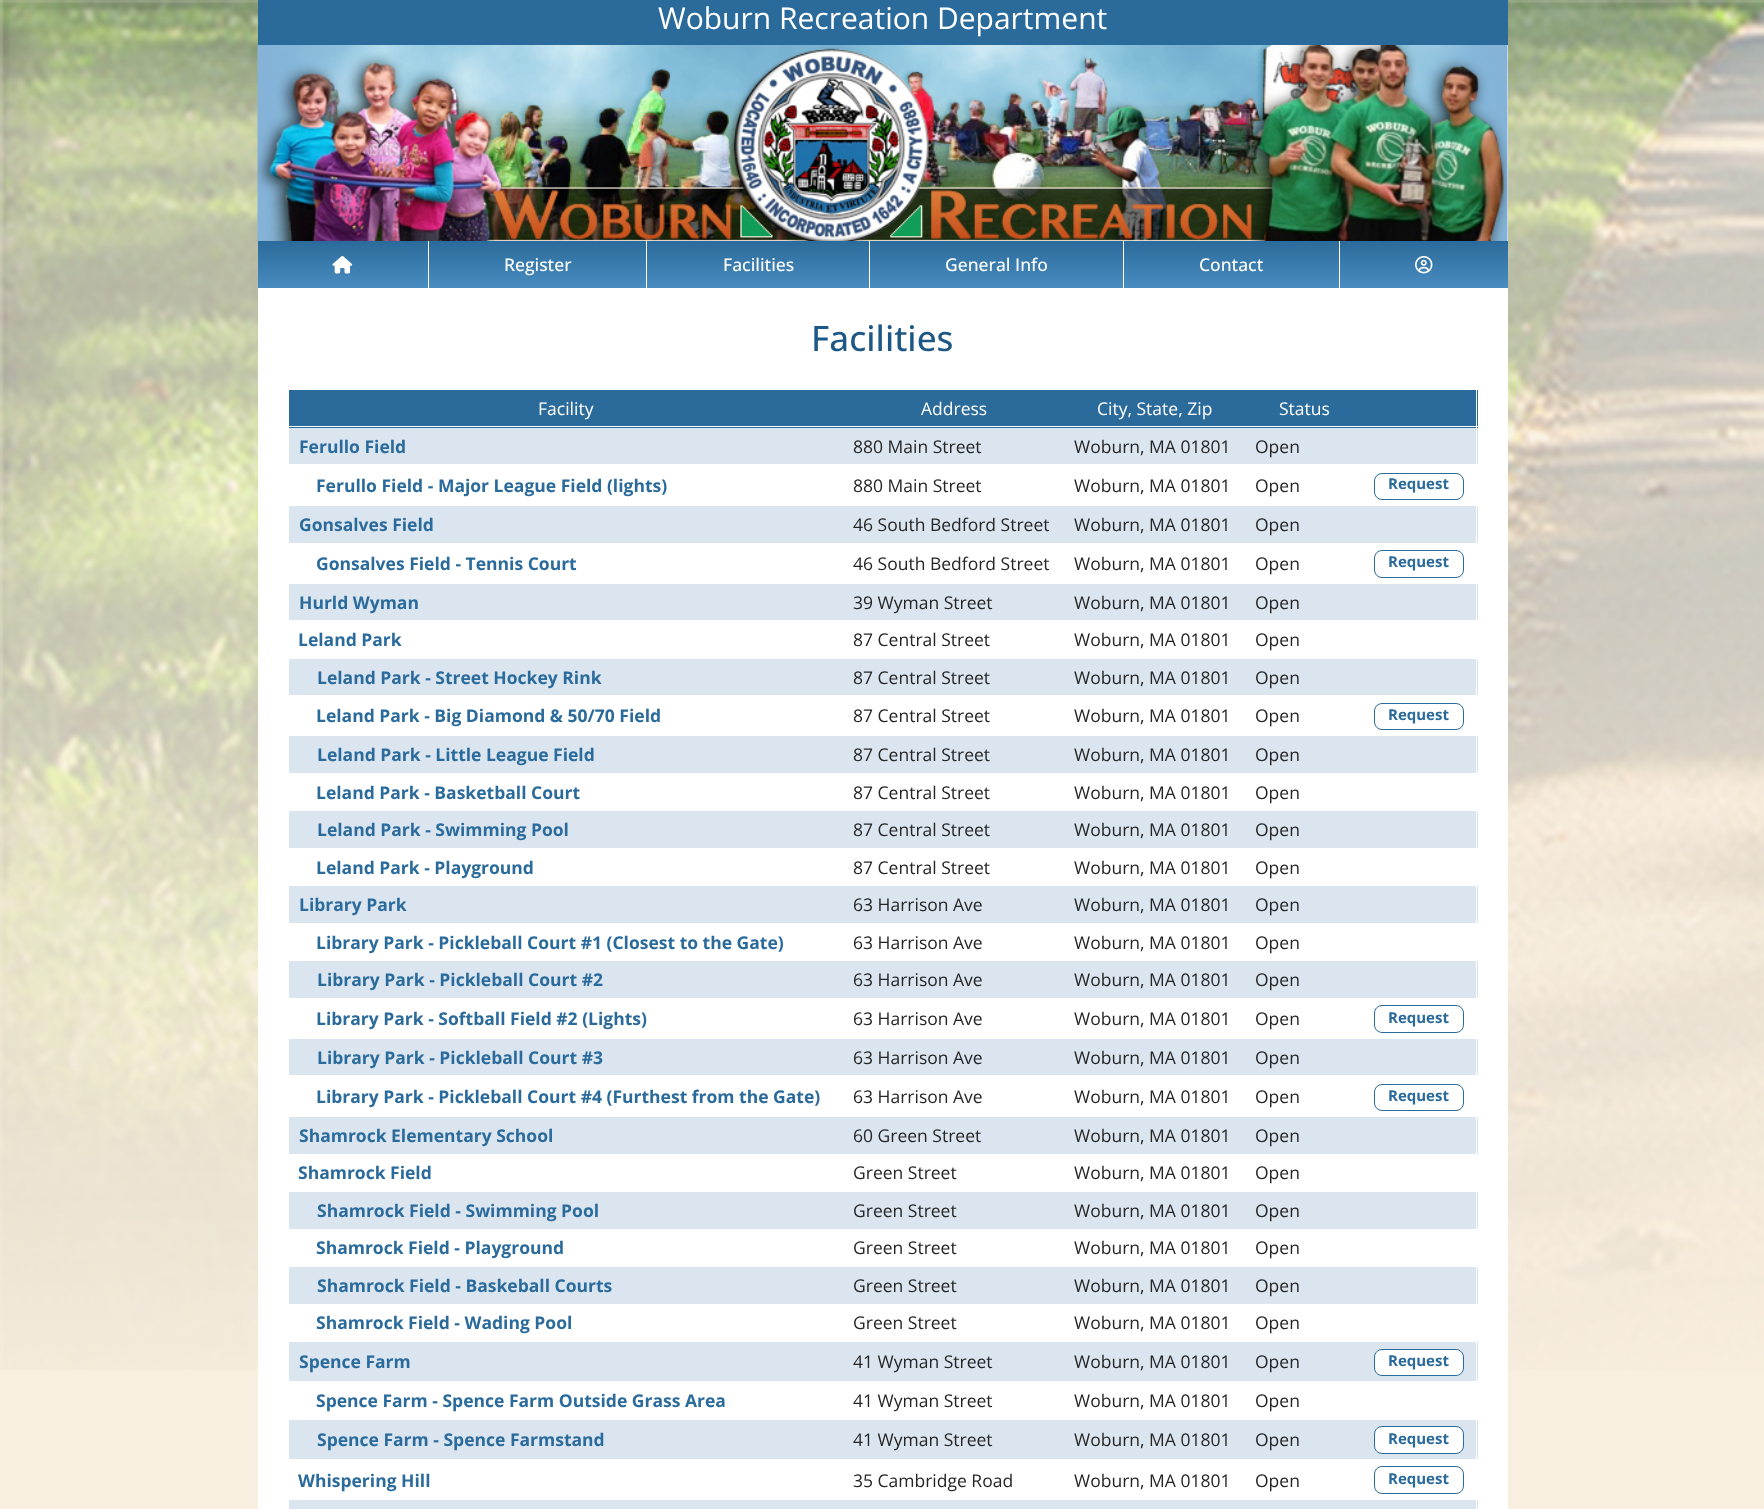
<svg xmlns="http://www.w3.org/2000/svg" width="1764" height="1509">
<style>
.a{font:30px Open Sans;fill:#fff}
.b{font:500 17.5px Open Sans;fill:#fff}
.c{font:500 35px Open Sans;fill:#1c5785}
.d{font:17.5px Open Sans;fill:#fff}
.e{font:bold 17.5px Open Sans;fill:#2b6b9c}
.f{font:17.5px Open Sans;fill:#252525}
.g{font:bold 15px Open Sans;fill:#2b6b9c}
</style>
<defs>
<linearGradient id="g1" gradientUnits="userSpaceOnUse" x1="883" y1="241" x2="883" y2="288"><stop offset="0" stop-color="#2b6b9c"/><stop offset="1" stop-color="#498cbf"/></linearGradient>
</defs>
<rect width="100%" height="100%" fill="#f9efe0"/>
<image href="1.png" x="0" y="0" width="1764" height="1370"/>
<path fill="#fff" d="M258 45h1250v1464H258z"/>
<path fill="#2b6b9c" d="M258 0h1250v45H258z"/>
<image href="2.png" x="257" y="45" width="1251" height="197"/>
<path fill="url(#g1)" d="M258 241h1250v47H258z"/>
<path fill="#fff" d="M428 241h1v47H428z"/>
<image href="3.png" x="332" y="256" width="21" height="18"/>
<path fill="#fff" d="M646 241h1v47H646z"/>
<path fill="#fff" d="M869 241h1v47H869z"/>
<path fill="#fff" d="M1123 241h1v47H1123z"/>
<path fill="#fff" d="M1339 241h1v47H1339z"/>
<image href="4.png" x="1415" y="255" width="18" height="19"/>
<path fill="#2b6b9c" d="M289 390h1189v38H289z"/>
<path fill="#fff" d="M288 426h1190v1H288z"/>
<path fill="#dae5f0" d="M289 428h1189v36H289z"/>
<path fill="#fff" d="M1476 389h1v76H1476z"/>
<rect fill="none" stroke="#2b6b9c" x="1374.5" y="473.5" width="89" height="26" rx="7.5"/>
<path fill="#dae5f0" d="M289 506h1189v37H289z"/>
<path fill="#fff" d="M1476 505h1v39H1476z"/>
<rect fill="none" stroke="#2b6b9c" x="1374.5" y="550.5" width="89" height="27" rx="7.5"/>
<path fill="#dae5f0" d="M289 584h1189v36H289z"/>
<path fill="#fff" d="M1476 583h1v38H1476z"/>
<path fill="#dae5f0" d="M289 659h1189v36H289z"/>
<path fill="#fff" d="M1476 658h1v38H1476z"/>
<rect fill="none" stroke="#2b6b9c" x="1374.5" y="703.5" width="89" height="26" rx="7.5"/>
<path fill="#dae5f0" d="M289 736h1189v37H289z"/>
<path fill="#fff" d="M1476 735h1v39H1476z"/>
<path fill="#dae5f0" d="M289 811h1189v37H289z"/>
<path fill="#fff" d="M1476 810h1v39H1476z"/>
<path fill="#dae5f0" d="M289 886h1189v37H289z"/>
<path fill="#fff" d="M1476 885h1v39H1476z"/>
<path fill="#dae5f0" d="M289 961h1189v37H289z"/>
<path fill="#fff" d="M1476 960h1v39H1476z"/>
<rect fill="none" stroke="#2b6b9c" x="1374.5" y="1005.5" width="89" height="27" rx="7.5"/>
<path fill="#dae5f0" d="M289 1039h1189v36H289z"/>
<path fill="#fff" d="M1476 1038h1v38H1476z"/>
<rect fill="none" stroke="#2b6b9c" x="1374.5" y="1084.5" width="89" height="26" rx="7.5"/>
<path fill="#dae5f0" d="M289 1117h1189v37H289z"/>
<path fill="#fff" d="M1476 1116h1v39H1476z"/>
<path fill="#dae5f0" d="M289 1192h1189v37H289z"/>
<path fill="#fff" d="M1476 1191h1v39H1476z"/>
<path fill="#dae5f0" d="M289 1267h1189v37H289z"/>
<path fill="#fff" d="M1476 1266h1v39H1476z"/>
<path fill="#dae5f0" d="M289 1342h1189v39H289z"/>
<path fill="#fff" d="M1476 1341h1v42H1476z"/>
<rect fill="#fff" stroke="#2b6b9c" x="1374.5" y="1349.5" width="89" height="26" rx="7.5"/>
<path fill="#dae5f0" d="M289 1420h1189v39H289z"/>
<path fill="#fff" d="M1476 1419h1v41H1476z"/>
<rect fill="#fff" stroke="#2b6b9c" x="1374.5" y="1426.5" width="89" height="27" rx="7.5"/>
<rect fill="none" stroke="#2b6b9c" x="1374.5" y="1466.5" width="89" height="27" rx="7.5"/>
<path fill="#dae5f0" d="M289 1500h1189v9H289z"/>
<path fill="#fff" d="M1476 1499h1v10H1476z"/>
<text class="a" x="658" y="29">Woburn Recreation Department</text>
<text class="b" x="504" y="271">Register</text>
<text class="b" x="723" y="271">Facilities</text>
<text class="b" x="945" y="271">General Info</text>
<text class="b" x="1199" y="271">Contact</text>
<text class="c" x="811" y="351">Facilities</text>
<text class="d" x="538" y="415">Facility</text>
<text class="d" x="921" y="415">Address</text>
<text class="d" x="1097" y="415">City, State, Zip</text>
<text class="d" x="1279" y="415">Status</text>
<text class="e" x="299" y="453">Ferullo Field</text>
<text class="f" x="853" y="453">880 Main Street</text>
<text class="f" x="1074" y="453">Woburn, MA 01801</text>
<text class="f" x="1255" y="453">Open</text>
<text class="e" x="316" y="492">Ferullo Field - Major League Field (lights)</text>
<text class="f" x="853" y="492">880 Main Street</text>
<text class="f" x="1074" y="492">Woburn, MA 01801</text>
<text class="f" x="1255" y="492">Open</text>
<text class="g" x="1388" y="489">Request</text>
<text class="e" x="299" y="531">Gonsalves Field</text>
<text class="f" x="853" y="531">46 South Bedford Street</text>
<text class="f" x="1074" y="531">Woburn, MA 01801</text>
<text class="f" x="1255" y="531">Open</text>
<text class="e" x="316" y="570">Gonsalves Field - Tennis Court</text>
<text class="f" x="853" y="570">46 South Bedford Street</text>
<text class="f" x="1074" y="570">Woburn, MA 01801</text>
<text class="f" x="1255" y="570">Open</text>
<text class="g" x="1388" y="567">Request</text>
<text class="e" x="299" y="609">Hurld Wyman</text>
<text class="f" x="853" y="609">39 Wyman Street</text>
<text class="f" x="1074" y="609">Woburn, MA 01801</text>
<text class="f" x="1255" y="609">Open</text>
<text class="e" x="298" y="646">Leland Park</text>
<text class="f" x="853" y="646">87 Central Street</text>
<text class="f" x="1074" y="646">Woburn, MA 01801</text>
<text class="f" x="1255" y="646">Open</text>
<text class="e" x="317" y="684">Leland Park - Street Hockey Rink</text>
<text class="f" x="853" y="684">87 Central Street</text>
<text class="f" x="1074" y="684">Woburn, MA 01801</text>
<text class="f" x="1255" y="684">Open</text>
<text class="e" x="316" y="722">Leland Park - Big Diamond &amp; 50/70 Field</text>
<text class="f" x="853" y="722">87 Central Street</text>
<text class="f" x="1074" y="722">Woburn, MA 01801</text>
<text class="f" x="1255" y="722">Open</text>
<text class="g" x="1388" y="720">Request</text>
<text class="e" x="317" y="761">Leland Park - Little League Field</text>
<text class="f" x="853" y="761">87 Central Street</text>
<text class="f" x="1074" y="761">Woburn, MA 01801</text>
<text class="f" x="1255" y="761">Open</text>
<text class="e" x="316" y="799">Leland Park - Basketball Court</text>
<text class="f" x="853" y="799">87 Central Street</text>
<text class="f" x="1074" y="799">Woburn, MA 01801</text>
<text class="f" x="1255" y="799">Open</text>
<text class="e" x="317" y="836">Leland Park - Swimming Pool</text>
<text class="f" x="853" y="836">87 Central Street</text>
<text class="f" x="1074" y="836">Woburn, MA 01801</text>
<text class="f" x="1255" y="836">Open</text>
<text class="e" x="316" y="874">Leland Park - Playground</text>
<text class="f" x="853" y="874">87 Central Street</text>
<text class="f" x="1074" y="874">Woburn, MA 01801</text>
<text class="f" x="1255" y="874">Open</text>
<text class="e" x="299" y="911">Library Park</text>
<text class="f" x="853" y="911">63 Harrison Ave</text>
<text class="f" x="1074" y="911">Woburn, MA 01801</text>
<text class="f" x="1255" y="911">Open</text>
<text class="e" x="316" y="949">Library Park - Pickleball Court #1 (Closest to the Gate)</text>
<text class="f" x="853" y="949">63 Harrison Ave</text>
<text class="f" x="1074" y="949">Woburn, MA 01801</text>
<text class="f" x="1255" y="949">Open</text>
<text class="e" x="317" y="986">Library Park - Pickleball Court #2</text>
<text class="f" x="853" y="986">63 Harrison Ave</text>
<text class="f" x="1074" y="986">Woburn, MA 01801</text>
<text class="f" x="1255" y="986">Open</text>
<text class="e" x="316" y="1025">Library Park - Softball Field #2 (Lights)</text>
<text class="f" x="853" y="1025">63 Harrison Ave</text>
<text class="f" x="1074" y="1025">Woburn, MA 01801</text>
<text class="f" x="1255" y="1025">Open</text>
<text class="g" x="1388" y="1023">Request</text>
<text class="e" x="317" y="1064">Library Park - Pickleball Court #3</text>
<text class="f" x="853" y="1064">63 Harrison Ave</text>
<text class="f" x="1074" y="1064">Woburn, MA 01801</text>
<text class="f" x="1255" y="1064">Open</text>
<text class="e" x="316" y="1103">Library Park - Pickleball Court #4 (Furthest from the Gate)</text>
<text class="f" x="853" y="1103">63 Harrison Ave</text>
<text class="f" x="1074" y="1103">Woburn, MA 01801</text>
<text class="f" x="1255" y="1103">Open</text>
<text class="g" x="1388" y="1101">Request</text>
<text class="e" x="299" y="1142">Shamrock Elementary School</text>
<text class="f" x="853" y="1142">60 Green Street</text>
<text class="f" x="1074" y="1142">Woburn, MA 01801</text>
<text class="f" x="1255" y="1142">Open</text>
<text class="e" x="298" y="1179">Shamrock Field</text>
<text class="f" x="853" y="1179">Green Street</text>
<text class="f" x="1074" y="1179">Woburn, MA 01801</text>
<text class="f" x="1255" y="1179">Open</text>
<text class="e" x="317" y="1217">Shamrock Field - Swimming Pool</text>
<text class="f" x="853" y="1217">Green Street</text>
<text class="f" x="1074" y="1217">Woburn, MA 01801</text>
<text class="f" x="1255" y="1217">Open</text>
<text class="e" x="316" y="1254">Shamrock Field - Playground</text>
<text class="f" x="853" y="1254">Green Street</text>
<text class="f" x="1074" y="1254">Woburn, MA 01801</text>
<text class="f" x="1255" y="1254">Open</text>
<text class="e" x="317" y="1292">Shamrock Field - Baskeball Courts</text>
<text class="f" x="853" y="1292">Green Street</text>
<text class="f" x="1074" y="1292">Woburn, MA 01801</text>
<text class="f" x="1255" y="1292">Open</text>
<text class="e" x="316" y="1329">Shamrock Field - Wading Pool</text>
<text class="f" x="853" y="1329">Green Street</text>
<text class="f" x="1074" y="1329">Woburn, MA 01801</text>
<text class="f" x="1255" y="1329">Open</text>
<text class="e" x="299" y="1368">Spence Farm</text>
<text class="f" x="853" y="1368">41 Wyman Street</text>
<text class="f" x="1074" y="1368">Woburn, MA 01801</text>
<text class="f" x="1255" y="1368">Open</text>
<text class="g" x="1388" y="1366">Request</text>
<text class="e" x="316" y="1407">Spence Farm - Spence Farm Outside Grass Area</text>
<text class="f" x="853" y="1407">41 Wyman Street</text>
<text class="f" x="1074" y="1407">Woburn, MA 01801</text>
<text class="f" x="1255" y="1407">Open</text>
<text class="e" x="317" y="1446">Spence Farm - Spence Farmstand</text>
<text class="f" x="853" y="1446">41 Wyman Street</text>
<text class="f" x="1074" y="1446">Woburn, MA 01801</text>
<text class="f" x="1255" y="1446">Open</text>
<text class="g" x="1388" y="1444">Request</text>
<text class="e" x="298" y="1487">Whispering Hill</text>
<text class="f" x="853" y="1487">35 Cambridge Road</text>
<text class="f" x="1074" y="1487">Woburn, MA 01801</text>
<text class="f" x="1255" y="1487">Open</text>
<text class="g" x="1388" y="1484">Request</text>
</svg>
